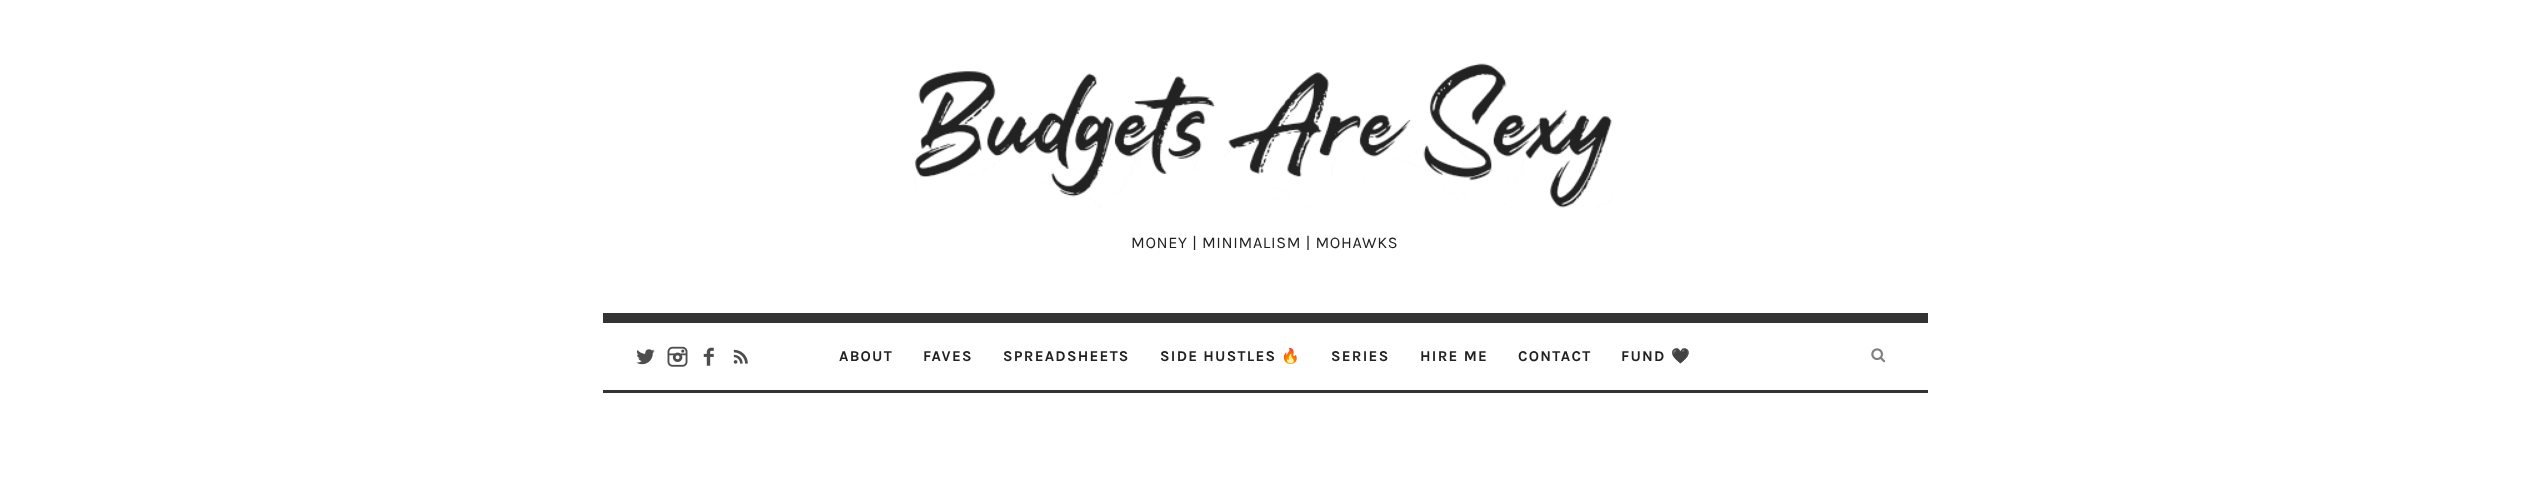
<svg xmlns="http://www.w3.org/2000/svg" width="2530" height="500">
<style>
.a{font:16.25px Karla;letter-spacing:0.65px;fill:#222}
.b{font:bold 15px Karla;letter-spacing:1.25px;fill:#222}
.c{font:bold 15px Noto Color Emoji;letter-spacing:1.25px;fill:#222}
</style>
<rect width="100%" height="100%" fill="#fff"/>
<image href="1.png" x="914" y="63" width="698" height="145"/>
<path fill="#333" d="M603 313h1325v10H603z"/>
<path fill="#333" d="M603 390h1325v3H603z"/>
<image href="2.png" x="636" y="349" width="19" height="16"/>
<image href="3.png" x="667" y="346" width="21" height="21"/>
<image href="4.png" x="703" y="347" width="11" height="19"/>
<image href="5.png" x="733" y="349" width="15" height="15"/>
<image href="6.png" x="1871" y="348" width="15" height="15"/>
<text class="a" x="1131" y="248">MONEY | MINIMALISM | MOHAWKS</text>
<text class="b" x="839" y="361">ABOUT</text>
<text class="b" x="923" y="361">FAVES</text>
<text class="b" x="1003" y="361">SPREADSHEETS</text>
<text class="b" x="1160" y="361">SIDE HUSTLES</text>
<text class="c" x="1281" y="361">🔥</text>
<text class="b" x="1331" y="361">SERIES</text>
<text class="b" x="1420" y="361">HIRE ME</text>
<text class="b" x="1518" y="361">CONTACT</text>
<text class="b" x="1621" y="361">FUND</text>
<text class="c" x="1671" y="361">🖤</text>
</svg>
